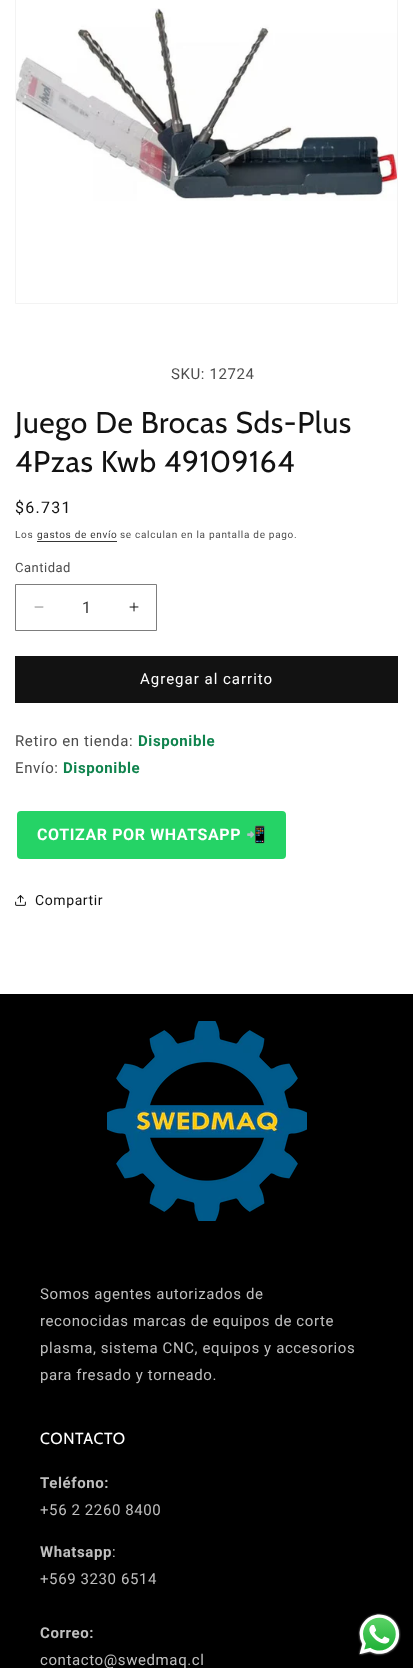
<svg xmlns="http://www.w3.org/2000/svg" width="413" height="1668">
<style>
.a{font:15px Roboto;letter-spacing:0.6px;fill:#4d4d4d}
.b{font:30px Cabin;letter-spacing:0.6px;fill:#121212}
.c{font:16px Roboto;letter-spacing:1.25px;fill:#121212}
.d{font:10px Roboto;letter-spacing:0.7px;fill:#4d4d4d}
.e{font:10px Roboto;letter-spacing:0.7px;fill:#363636}
.f{font:13px Roboto;letter-spacing:0.5px;fill:#4d4d4d}
.g{font:16px Roboto;fill:#363636}
.h{font:15px Roboto;letter-spacing:1px;fill:#fff}
.i{font:bold 15px Roboto;letter-spacing:0.6px;fill:#0f834d}
.j{font:bold 16px Roboto;letter-spacing:0.6px;fill:#fff}
.k{font:bold 16px Noto Color Emoji;letter-spacing:0.6px;fill:#fff}
.l{font:14px Roboto;letter-spacing:0.6px;fill:#121212}
.m{font:15px Roboto;letter-spacing:0.6px;fill:#bfbfbf}
.n{font:16px Cabin;letter-spacing:0.6px;fill:#fff}
.o{font:bold 15px Roboto;letter-spacing:0.6px;fill:#bfbfbf}
</style>
<rect width="100%" height="100%" fill="#fff"/>
<path fill="none" stroke="#f3f3f3" d="M15.5 -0.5h382v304H15.5z"/>
<image href="1.png" x="16" y="8" width="381" height="193"/>
<path fill="#363636" d="M37 541h80v1H37z"/>
<image href="2.png" x="34" y="606" width="10" height="2"/>
<image href="3.png" x="129" y="602" width="10" height="10"/>
<path fill="none" stroke="#7d7d7d" d="M15.5 584.5h141v46H15.5z"/>
<path fill="#121212" d="M15 656h383v47H15z"/>
<rect fill="#25d366" x="17" y="811" width="269" height="48" rx="4"/>
<image href="4.png" x="15" y="895" width="11" height="11"/>
<path fill="#000" d="M0 994h413v674H0z"/>
<image href="5.png" x="107" y="1021" width="200" height="200"/>
<image href="6.png" x="358" y="1613" width="43" height="43"/>
<text class="a" x="171" y="379">SKU: 12724</text>
<text class="b" x="15" y="433">Juego De Brocas Sds-Plus</text>
<text class="b" x="15" y="472">4Pzas Kwb 49109164</text>
<text class="c" x="15" y="513">$6.731</text>
<text class="d" x="15" y="538">Los</text>
<text class="e" x="37" y="538">gastos de envío</text>
<text class="d" x="120" y="538">se calculan en la pantalla de pago.</text>
<text class="f" x="15" y="572">Cantidad</text>
<text class="g" x="82" y="613">1</text>
<text class="h" x="140" y="684">Agregar al carrito</text>
<text class="a" x="15" y="746">Retiro en tienda:</text>
<text class="i" x="138" y="746">Disponible</text>
<text class="a" x="15" y="773">Envío:</text>
<text class="i" x="63" y="773">Disponible</text>
<text class="j" x="37" y="840">COTIZAR POR WHATSAPP</text>
<text class="k" x="246" y="840">📲</text>
<text class="l" x="35" y="905">Compartir</text>
<text class="m" x="40" y="1299">Somos agentes autorizados de</text>
<text class="m" x="40" y="1326">reconocidas marcas de equipos de corte</text>
<text class="m" x="40" y="1353">plasma, sistema CNC, equipos y accesorios</text>
<text class="m" x="40" y="1380">para fresado y torneado.</text>
<text class="n" x="40" y="1444">CONTACTO</text>
<text class="o" x="40" y="1488">Teléfono:</text>
<text class="m" x="40" y="1515">+56 2 2260 8400</text>
<text class="o" x="40" y="1557">Whatsapp</text>
<text class="m" x="112" y="1557">:</text>
<text class="m" x="40" y="1584">+569 3230 6514</text>
<text class="o" x="40" y="1638">Correo:</text>
<text class="m" x="40" y="1665">contacto@swedmaq.cl</text>
</svg>
